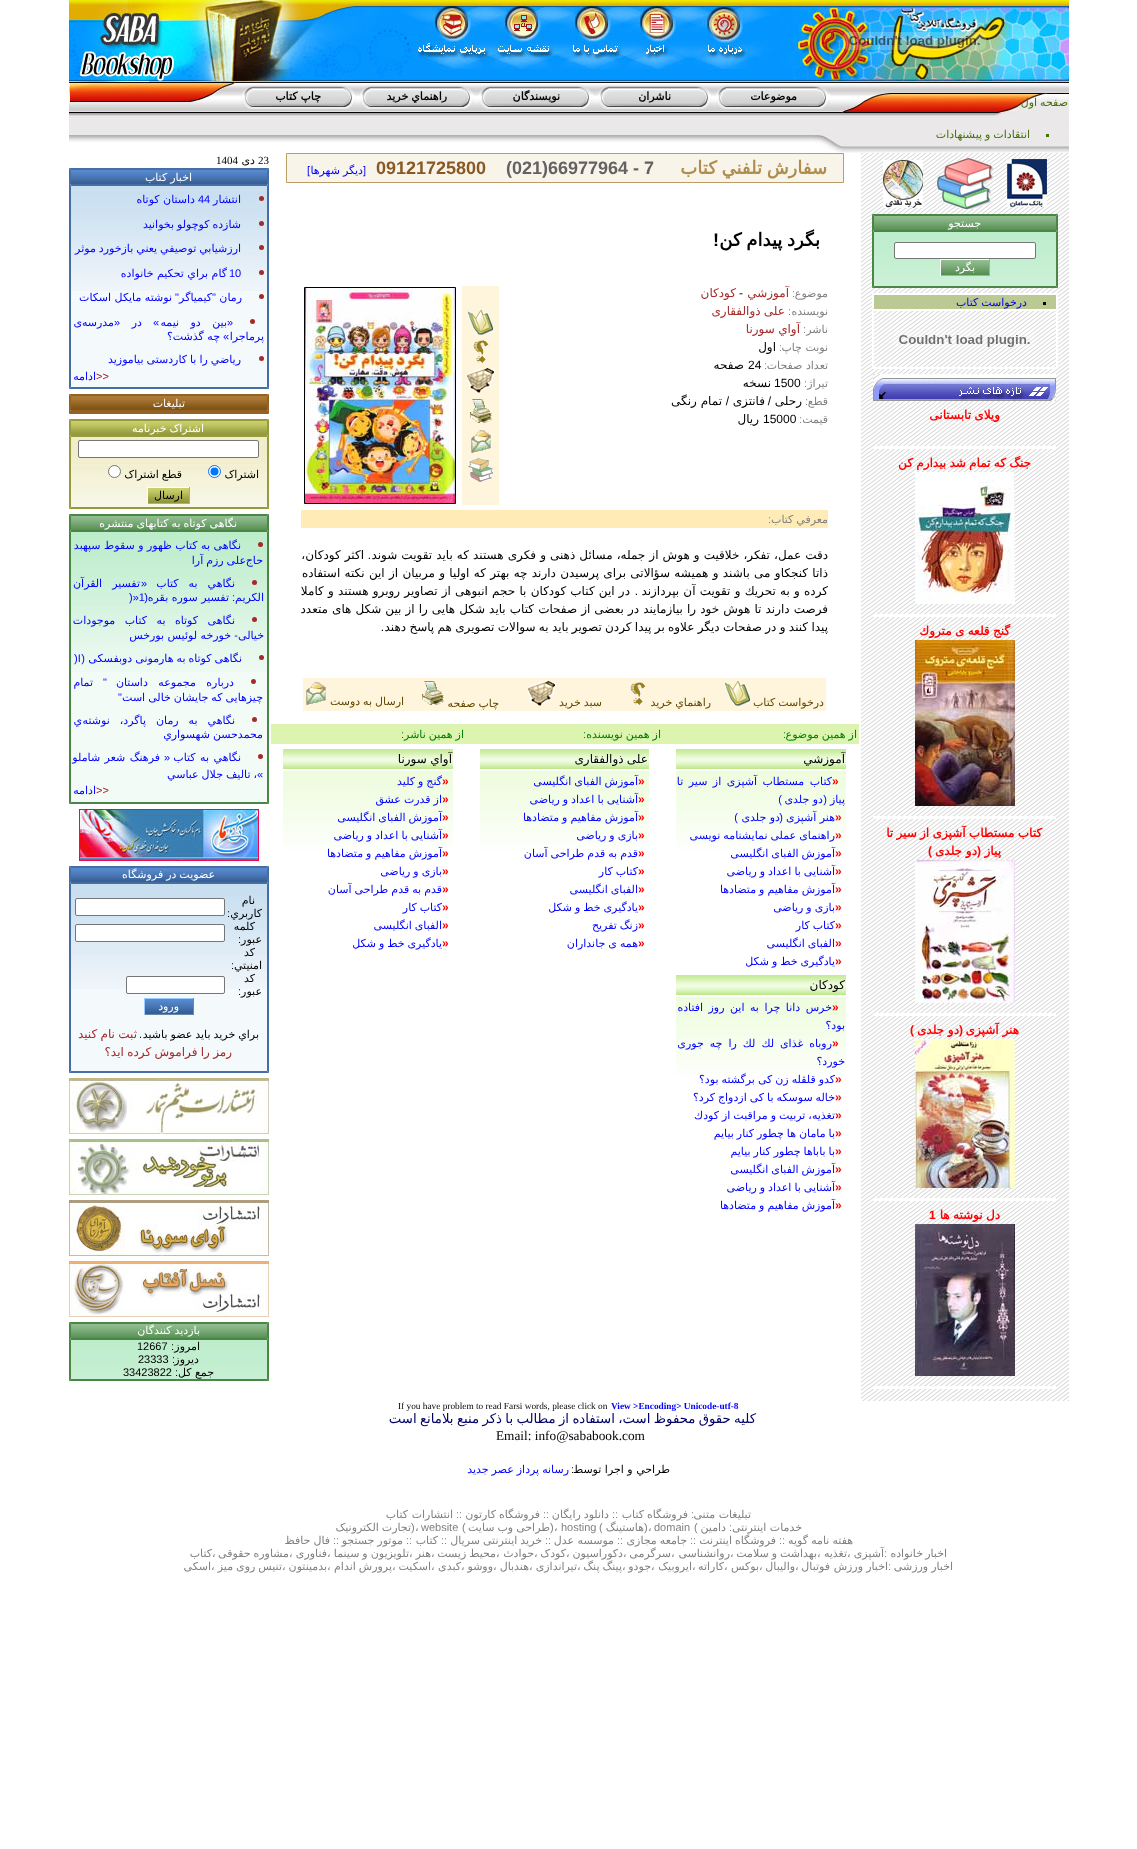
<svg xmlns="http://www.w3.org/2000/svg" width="1137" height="1849">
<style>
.a{font:11px DejaVu Sans;direction:rtl;fill:#447009}
.b{font:bold 11px DejaVu Sans;direction:rtl;fill:#000}
.c{font:11px DejaVu Sans;direction:rtl;fill:#fff}
.d{font:11px DejaVu Sans;direction:rtl;fill:#00e}
.e{font:bold 12px DejaVu Sans;direction:rtl;fill:#f00}
.f{font:bold 12px Liberation Sans;direction:rtl;fill:#f00}
.g{font:bold 12px Liberation Sans;fill:#f00}
.h{font:bold 18px DejaVu Sans;direction:rtl;fill:#af8d4f}
.i{font:bold 18px Liberation Sans;fill:#636262}
.j{font:bold 18px Liberation Sans;fill:#895925}
.k{font:11px Liberation Sans;direction:rtl;fill:#00f}
.l{font:11px DejaVu Sans;direction:rtl;fill:#00f}
.m{font:bold 18px DejaVu Sans;direction:rtl;fill:#000}
.n{font:bold 18px Liberation Sans;direction:rtl;fill:#000}
.o{font:11px DejaVu Sans;direction:rtl;fill:#808080}
.p{font:11px Liberation Sans;direction:rtl;fill:#808080}
.q{font:12px DejaVu Sans;direction:rtl;fill:#a52a2a}
.r{font:12px Liberation Sans;fill:#000}
.s{font:12px DejaVu Sans;direction:rtl;fill:#000}
.t{font:12px Liberation Sans;direction:rtl;fill:#000}
.u{font:11px DejaVu Sans;direction:rtl;fill:#614900}
.v{font:11px DejaVu Sans;direction:rtl;fill:#008000}
.w{font:11px Liberation Sans;direction:rtl;fill:#008000}
.x{font:11px Liberation Serif;fill:#000}
.y{font:11px DejaVu Sans;direction:rtl;fill:#000}
.z{font:11px Liberation Sans;fill:#00f}
.a1{font:11px Liberation Sans;fill:#a52a2a}
.b1{font:11px Liberation Sans;direction:rtl;fill:#000}
.c1{font:11px Liberation Sans;fill:#000}
.d1{font:bold 9.3px Liberation Serif;fill:#00f}
.e1{font:9.3px Liberation Serif;fill:#000}
.f1{font:13.3px DejaVu Sans;direction:rtl;fill:#006}
.g1{font:13.3px Liberation Serif;fill:#000}
.h1{font:11px Liberation Sans;fill:#808080}
.i1{font:11px DejaVu Sans;fill:#808080}
</style>
<rect width="100%" height="100%" fill="#fff"/>
<image href="1.png" x="69" y="0" width="1000" height="81"/>
<image href="2.png" x="843" y="32" width="143" height="18"/>
<image href="3.png" x="69" y="81" width="1000" height="35"/>
<image href="4.png" x="842" y="93" width="227" height="23"/>
<image href="5.png" x="716" y="85" width="114" height="24"/>
<image href="6.png" x="598" y="85" width="113" height="24"/>
<image href="5.png" x="479" y="85" width="114" height="24"/>
<image href="5.png" x="360" y="85" width="114" height="24"/>
<image href="6.png" x="242" y="85" width="113" height="24"/>
<image href="7.png" x="70" y="81" width="165" height="21"/>
<image href="8.png" x="69" y="116" width="1000" height="26"/>
<image href="9.png" x="843" y="135" width="226" height="18"/>
<path fill="#447009" d="M1046 134h3v3H1046z"/>
<image href="10.png" x="815" y="130" width="28" height="23"/>
<image href="11.png" x="861" y="153" width="208" height="1248"/>
<image href="12.png" x="883" y="158" width="164" height="51"/>
<path fill="none" stroke="#4a8646" d="M872.5 214.5h185v73H872.5z"/>
<image href="13.png" x="874" y="216" width="182" height="14"/>
<path fill="none" stroke="#4a8646" d="M873.5 215.5h183v15H873.5z"/>
<image href="14.png" x="874" y="232" width="182" height="54"/>
<path fill="none" stroke="#4a8646" d="M873.5 231.5h183v55H873.5z"/>
<rect fill="#fff" stroke="#767676" x="894.5" y="242.5" width="141" height="16" rx="1.5"/>
<image href="15.png" x="941" y="260" width="48" height="15"/>
<path fill="#fff" d="M940 259h50v1H940z"/>
<path fill="#aaa" d="M989 259h1v17H989z"/>
<path fill="#aaa" d="M940 275h50v1H940z"/>
<path fill="#fff" d="M940 259h1v17H940z"/>
<path fill="none" stroke="#fff" d="M872.5 293.5h185v75H872.5z"/>
<path fill="#bbca92" stroke="#fff" d="M873.5 294.5h183v15H873.5z"/>
<path fill="#000" d="M1043 302h3v3H1043z"/>
<path fill="none" stroke="#fff" d="M873.5 310.5h183v57H873.5z"/>
<image href="16.png" x="893" y="330" width="143" height="18"/>
<image href="17.png" x="873" y="374" width="183" height="27"/>
<path fill="#fff" d="M873 446h183v3H873z"/>
<image href="18.png" x="915" y="472" width="100" height="132"/>
<path fill="#fff" d="M873 614h183v3H873z"/>
<image href="19.png" x="915" y="640" width="100" height="166"/>
<path fill="#fff" d="M873 816h183v3H873z"/>
<image href="20.png" x="915" y="860" width="100" height="143"/>
<path fill="#fff" d="M873 1013h183v3H873z"/>
<image href="21.png" x="915" y="1039" width="100" height="149"/>
<path fill="#fff" d="M873 1198h183v3H873z"/>
<image href="22.png" x="915" y="1224" width="100" height="152"/>
<path fill="#fff" d="M873 1386h183v3H873z"/>
<path fill="#f9f4e9" stroke="#ba9d67" d="M286.5 153.5h557v29H286.5z"/>
<path fill="#fef5dc" d="M462 286h37v219H462z"/>
<image href="23.png" x="468" y="310" width="25" height="25"/>
<image href="24.png" x="473" y="340" width="16" height="23"/>
<image href="25.png" x="467" y="368" width="28" height="25"/>
<image href="26.png" x="470" y="399" width="22" height="24"/>
<image href="27.png" x="471" y="430" width="20" height="23"/>
<image href="28.png" x="468" y="458" width="25" height="24"/>
<path fill="none" stroke="#000" d="M304.5 287.5h151v216H304.5z"/>
<image href="29.png" x="305" y="288" width="150" height="215"/>
<path fill="#feebb6" d="M301 510h527v18H301z"/>
<path fill="#fef5dc" d="M303 678h523v33H303z"/>
<image href="23.png" x="725" y="681" width="25" height="25"/>
<image href="24.png" x="630" y="682" width="16" height="23"/>
<image href="25.png" x="528" y="681" width="28" height="25"/>
<image href="26.png" x="422" y="681" width="22" height="24"/>
<image href="27.png" x="306" y="682" width="20" height="23"/>
<path fill="#ddf4b0" d="M271 724h588v20H271z"/>
<image href="30.png" x="676" y="749" width="170" height="20"/>
<image href="31.png" x="676" y="771" width="170" height="79"/>
<image href="30.png" x="676" y="975" width="170" height="20"/>
<image href="31.png" x="676" y="997" width="170" height="79"/>
<image href="32.png" x="480" y="749" width="169" height="20"/>
<image href="33.png" x="480" y="771" width="169" height="79"/>
<image href="30.png" x="283" y="749" width="170" height="20"/>
<image href="31.png" x="283" y="771" width="170" height="79"/>
<path fill="none" stroke="#446ea4" d="M69.5 168.5h199v220H69.5z"/>
<image href="34.png" x="71" y="170" width="196" height="14"/>
<path fill="none" stroke="#446ea4" d="M70.5 169.5h197v15H70.5z"/>
<path fill="#f4f9fc" d="M71 291h196v96H71z"/>
<image href="35.png" x="71" y="186" width="196" height="105"/>
<path fill="none" stroke="#446ea4" d="M70.5 185.5h197v202H70.5z"/>
<circle fill="#a52a2a" cx="261.5" cy="198.5" r="2.5"/>
<circle fill="#a52a2a" cx="261.5" cy="223.5" r="2.5"/>
<circle fill="#a52a2a" cx="261.5" cy="247.5" r="2.5"/>
<circle fill="#a52a2a" cx="261.5" cy="272.5" r="2.5"/>
<circle fill="#a52a2a" cx="261.5" cy="296.5" r="2.5"/>
<circle fill="#a52a2a" cx="252.5" cy="321.5" r="2.5"/>
<circle fill="#a52a2a" cx="261.5" cy="358.5" r="2.5"/>
<path fill="none" stroke="#946323" d="M69.5 394.5h199v19H69.5z"/>
<image href="36.png" x="71" y="396" width="196" height="14"/>
<path fill="none" stroke="#946323" d="M70.5 395.5h197v15H70.5z"/>
<path fill="#946323" d="M70 411h198v2H70z"/>
<path fill="none" stroke="#969b3e" d="M69.5 419.5h199v89H69.5z"/>
<image href="37.png" x="71" y="421" width="196" height="14"/>
<path fill="none" stroke="#969b3e" d="M70.5 420.5h197v15H70.5z"/>
<image href="38.png" x="71" y="437" width="196" height="70"/>
<path fill="none" stroke="#969b3e" d="M70.5 436.5h197v71H70.5z"/>
<rect fill="#fff" stroke="#767676" x="78.5" y="440.5" width="180" height="17" rx="1.5"/>
<circle fill="#fff" stroke="#0075ff" cx="214.5" cy="471.5" r="6"/>
<circle fill="#0075ff" cx="214.5" cy="471.5" r="4"/>
<circle fill="#fff" stroke="#767676" cx="114.5" cy="471.5" r="6"/>
<image href="39.png" x="148" y="488" width="41" height="15"/>
<path fill="#fff" d="M147 487h43v1H147z"/>
<path fill="#aaa" d="M189 487h1v17H189z"/>
<path fill="#aaa" d="M147 503h43v1H147z"/>
<path fill="#fff" d="M147 487h1v17H147z"/>
<path fill="none" stroke="#4a8646" d="M69.5 514.5h199v289H69.5z"/>
<image href="40.png" x="71" y="516" width="196" height="14"/>
<path fill="none" stroke="#4a8646" d="M70.5 515.5h197v15H70.5z"/>
<path fill="#f2fbf5" d="M71 672h196v130H71z"/>
<image href="41.png" x="71" y="532" width="196" height="140"/>
<path fill="none" stroke="#4a8646" d="M70.5 531.5h197v271H70.5z"/>
<circle fill="#a52a2a" cx="260.5" cy="544.5" r="2.5"/>
<circle fill="#a52a2a" cx="254.5" cy="582.5" r="2.5"/>
<circle fill="#a52a2a" cx="254.5" cy="619.5" r="2.5"/>
<circle fill="#a52a2a" cx="261.5" cy="657.5" r="2.5"/>
<circle fill="#a52a2a" cx="253.5" cy="681.5" r="2.5"/>
<circle fill="#a52a2a" cx="254.5" cy="719.5" r="2.5"/>
<circle fill="#a52a2a" cx="260.5" cy="756.5" r="2.5"/>
<image href="42.png" x="79" y="809" width="180" height="52"/>
<path fill="none" stroke="#446ea4" d="M69.5 866.5h199v206H69.5z"/>
<image href="34.png" x="71" y="868" width="196" height="14"/>
<path fill="none" stroke="#446ea4" d="M70.5 867.5h197v15H70.5z"/>
<path fill="#f4f9fc" d="M71 989h196v82H71z"/>
<image href="35.png" x="71" y="884" width="196" height="105"/>
<path fill="none" stroke="#446ea4" d="M70.5 883.5h197v188H70.5z"/>
<rect fill="#fff" stroke="#767676" x="75.5" y="898.5" width="149" height="17" rx="1.5"/>
<rect fill="#fff" stroke="#767676" x="75.5" y="924.5" width="149" height="17" rx="1.5"/>
<rect fill="#fff" stroke="#767676" x="126.5" y="976.5" width="98" height="17" rx="1.5"/>
<image href="43.png" x="145" y="999" width="48" height="15"/>
<path fill="#9cf" d="M144 998h50v1H144z"/>
<path fill="#68a" d="M193 998h1v17H193z"/>
<path fill="#68a" d="M144 1014h50v1H144z"/>
<path fill="#9cf" d="M144 998h1v17H144z"/>
<image href="44.png" x="69" y="1078" width="200" height="56"/>
<image href="45.png" x="69" y="1139" width="200" height="56"/>
<image href="46.png" x="69" y="1200" width="200" height="56"/>
<image href="47.png" x="69" y="1261" width="200" height="56"/>
<path fill="none" stroke="#4a8646" d="M69.5 1322.5h199v58H69.5z"/>
<image href="40.png" x="71" y="1324" width="196" height="14"/>
<path fill="none" stroke="#4a8646" d="M70.5 1323.5h197v15H70.5z"/>
<image href="48.png" x="71" y="1340" width="196" height="39"/>
<path fill="none" stroke="#4a8646" d="M70.5 1339.5h197v40H70.5z"/>
<text class="a" x="1068" y="106" word-spacing="-0.5">صفحه اول</text>
<text class="b" x="797" y="100">موضوعات</text>
<text class="b" x="671" y="100">ناشران</text>
<text class="b" x="560" y="100">نويسندگان</text>
<text class="b" x="447" y="100" word-spacing="-0.5">راهنماي خريد</text>
<text class="b" x="321" y="100" word-spacing="-0.5">چاپ کتاب</text>
<text class="a" x="1030" y="138" word-spacing="-0.5">انتقادات و پيشنهادات</text>
<text class="c" x="981" y="227">جستجو</text>
<text class="c" x="975" y="271">بگرد</text>
<text class="d" x="1027" y="306" word-spacing="-0.5">درخواست کتاب</text>
<text class="e" x="1000" y="419" word-spacing="-0.5">ویلای تابستانی</text>
<text class="e" x="1031" y="467" word-spacing="-0.5">جنگ كه تمام شد بیدارم كن</text>
<text class="e" x="1010" y="635" word-spacing="-0.5">گنج قلعه ی متروك</text>
<text class="e" x="1042" y="837" word-spacing="-0.5">كتاب مستطاب آشپزی از سیر تا</text>
<text class="e" x="1001" y="855">پیاز</text>
<text class="f" x="981" y="855">(</text>
<text class="e" x="977" y="855">دو جلدی</text>
<text class="f" x="932" y="855">)</text>
<text class="e" x="1019" y="1034">هنر آشپزی</text>
<text class="f" x="963" y="1034">(</text>
<text class="e" x="959" y="1034">دو جلدی</text>
<text class="f" x="914" y="1034">)</text>
<text class="e" x="1000" y="1219" word-spacing="-0.5">دل نوشته ها</text>
<text class="g" x="929" y="1219">1</text>
<text class="h" x="827" y="174" word-spacing="-1">سفارش تلفني كتاب</text>
<text class="i" x="506" y="174">(021)66977964 - 7</text>
<text class="j" x="376" y="174">09121725800</text>
<text class="k" x="366" y="174">[</text>
<text class="l" x="363" y="174" word-spacing="-0.5">دیگر شهرها</text>
<text class="k" x="310" y="174">]</text>
<text class="m" x="820" y="246" word-spacing="-1">بگرد پیدام كن</text>
<text class="n" x="719" y="246">!</text>
<text class="o" x="828" y="297">موضوع</text>
<text class="p" x="795" y="297">:</text>
<text class="q" x="789" y="297">آموزشي</text>
<text class="r" x="739" y="297">-</text>
<text class="q" x="736" y="297">كودكان</text>
<text class="o" x="828" y="315">نويسنده</text>
<text class="p" x="791" y="315">:</text>
<text class="q" x="785" y="315" word-spacing="-0.5">علی ذوالفقاری</text>
<text class="q" x="800" y="333" word-spacing="-0.5">آواي سورنا</text>
<text class="p" x="806" y="333">:</text>
<text class="o" x="828" y="333">ناشر</text>
<text class="o" x="828" y="351">نوبت چاپ</text>
<text class="p" x="782" y="351">:</text>
<text class="s" x="776" y="351">اول</text>
<text class="o" x="828" y="369">تعداد صفحات</text>
<text class="p" x="767" y="369">:</text>
<text class="r" x="748" y="369">24</text>
<text class="s" x="744" y="369">صفحه</text>
<text class="r" x="774" y="387">1500</text>
<text class="s" x="771" y="387">نسخه</text>
<text class="p" x="807" y="387">:</text>
<text class="o" x="828" y="387">تيراژ</text>
<text class="o" x="828" y="405">قطع</text>
<text class="p" x="808" y="405">:</text>
<text class="s" x="802" y="405">رحلی</text>
<text class="t" x="771" y="405">/</text>
<text class="s" x="765" y="405">فانتزی</text>
<text class="t" x="729" y="405">/</text>
<text class="s" x="722" y="405">تمام رنگی</text>
<text class="o" x="828" y="423">قيمت</text>
<text class="p" x="802" y="423">:</text>
<text class="r" x="763" y="423">15000</text>
<text class="s" x="759" y="423">ريال</text>
<text class="o" x="828" y="523" word-spacing="-0.5">معرفي کتاب</text>
<text class="p" x="771" y="523">:</text>
<text class="s" x="828" y="559" word-spacing="0.25">دقت عمل، تفكر، خلاقیت و هوش از جمله، مسائل ذهنی و فكری هستند كه باید تقویت شوند</text>
<text class="t" x="371" y="559">.</text>
<text class="s" x="364" y="559" word-spacing="0.25">اكثر كودكان،</text>
<text class="s" x="828" y="577" word-spacing="0.5">ذاتا كنجكاو می باشند و همیشه سؤالاتی برای پرسیدن دارند چه بهتر كه اولیا و مربیان از این نكته استفاده</text>
<text class="s" x="828" y="595" word-spacing="0.4">كرده و به تحریك و تقویت آن بپردازند</text>
<text class="t" x="638" y="595">.</text>
<text class="s" x="630" y="595" word-spacing="0.4">در این كتاب كودكان با حجم انبوهی از تصاویر روبرو هستند و كاملا</text>
<text class="s" x="828" y="613" word-spacing="0.25">فرصت دارند تا هوش خود را بیازمایند در بعضی از صفحات كتاب باید شكل هایی را از بین شكل های متعدد</text>
<text class="s" x="828" y="631" word-spacing="-0.5">پیدا كنند و در صفحات دیگر علاوه بر پیدا كردن تصویر باید به سوالات تصویری هم پاسخ دهند</text>
<text class="t" x="384" y="631">.</text>
<text class="u" x="824" y="706" word-spacing="-0.5">درخواست کتاب</text>
<text class="u" x="711" y="706" word-spacing="-0.5">راهنماي خريد</text>
<text class="u" x="602" y="706" word-spacing="-0.5">سبد خريد</text>
<text class="u" x="499" y="707" word-spacing="-0.5">چاپ صفحه</text>
<text class="u" x="404" y="705" word-spacing="-0.5">ارسال به دوست</text>
<text class="v" x="857" y="738" word-spacing="-0.5">از همين موضوع</text>
<text class="w" x="786" y="738">:</text>
<text class="v" x="661" y="738" word-spacing="-0.5">از همين نويسنده</text>
<text class="w" x="586" y="738">:</text>
<text class="w" x="404" y="738">:</text>
<text class="v" x="464" y="738" word-spacing="-0.5">از همين ناشر</text>
<text class="s" x="845" y="763">آموزشي</text>
<text class="g" x="832" y="785">»</text>
<text class="l" x="832" y="785" word-spacing="2">كتاب مستطاب آشپزی از سیر تا</text>
<text class="l" x="845" y="803">پیاز</text>
<text class="k" x="827" y="803">(</text>
<text class="l" x="823" y="803">دو جلدی</text>
<text class="k" x="782" y="803">)</text>
<text class="g" x="835" y="821">»</text>
<text class="l" x="835" y="821">هنر آشپزی</text>
<text class="k" x="783" y="821">(</text>
<text class="l" x="780" y="821">دو جلدی</text>
<text class="k" x="738" y="821">)</text>
<text class="g" x="835" y="839">»</text>
<text class="l" x="835" y="839" word-spacing="-0.5">راهنمای عملی نمایشنامه نویسی</text>
<text class="g" x="835" y="857">»</text>
<text class="l" x="835" y="857" word-spacing="-0.5">آموزش الفبای انگلیسی</text>
<text class="g" x="835" y="875">»</text>
<text class="l" x="835" y="875" word-spacing="-0.5">آشنایی با اعداد و ریاضی</text>
<text class="g" x="835" y="893">»</text>
<text class="l" x="835" y="893" word-spacing="-0.5">آموزش مفاهیم و متضادها</text>
<text class="g" x="835" y="911">»</text>
<text class="l" x="835" y="911" word-spacing="-0.5">بازی و ریاضی</text>
<text class="g" x="835" y="929">»</text>
<text class="l" x="835" y="929" word-spacing="-0.5">كتاب كار</text>
<text class="g" x="835" y="947">»</text>
<text class="l" x="835" y="947" word-spacing="-0.5">الفبای انگلیسی</text>
<text class="g" x="835" y="965">»</text>
<text class="l" x="835" y="965" word-spacing="-0.5">یادگیری خط و شكل</text>
<text class="s" x="845" y="989">كودكان</text>
<text class="g" x="832" y="1011">»</text>
<text class="l" x="832" y="1011" word-spacing="2">خرس دانا چرا به این روز افتاده</text>
<text class="l" x="845" y="1029">بود؟</text>
<text class="g" x="832" y="1047">»</text>
<text class="l" x="832" y="1047" word-spacing="2.5">روباه غذای لك لك را چه جوری</text>
<text class="l" x="845" y="1065">خورد؟</text>
<text class="g" x="835" y="1083">»</text>
<text class="l" x="835" y="1083" word-spacing="-0.5">كدو قلقله زن كی برگشته بود؟</text>
<text class="g" x="835" y="1101">»</text>
<text class="l" x="835" y="1101" word-spacing="-0.5">خاله سوسكه با كی ازدواج كرد؟</text>
<text class="g" x="835" y="1119">»</text>
<text class="l" x="835" y="1119" word-spacing="-0.5">تغذیه، تربیت و مراقبت از كودك</text>
<text class="g" x="835" y="1137">»</text>
<text class="l" x="835" y="1137" word-spacing="-0.5">با مامان ها چطور كنار بیایم</text>
<text class="g" x="835" y="1155">»</text>
<text class="l" x="835" y="1155" word-spacing="-0.5">با باباها چطور كنار بیایم</text>
<text class="g" x="835" y="1173">»</text>
<text class="l" x="835" y="1173" word-spacing="-0.5">آموزش الفبای انگلیسی</text>
<text class="g" x="835" y="1191">»</text>
<text class="l" x="835" y="1191" word-spacing="-0.5">آشنایی با اعداد و ریاضی</text>
<text class="g" x="835" y="1209">»</text>
<text class="l" x="835" y="1209" word-spacing="-0.5">آموزش مفاهیم و متضادها</text>
<text class="s" x="648" y="763" word-spacing="-0.5">علی ذوالفقاری</text>
<text class="g" x="638" y="785">»</text>
<text class="l" x="638" y="785" word-spacing="-0.5">آموزش الفبای انگلیسی</text>
<text class="g" x="638" y="803">»</text>
<text class="l" x="638" y="803" word-spacing="-0.5">آشنایی با اعداد و ریاضی</text>
<text class="g" x="638" y="821">»</text>
<text class="l" x="638" y="821" word-spacing="-0.5">آموزش مفاهیم و متضادها</text>
<text class="g" x="638" y="839">»</text>
<text class="l" x="638" y="839" word-spacing="-0.5">بازی و ریاضی</text>
<text class="g" x="638" y="857">»</text>
<text class="l" x="638" y="857" word-spacing="-0.5">قدم به قدم طراحی آسان</text>
<text class="g" x="638" y="875">»</text>
<text class="l" x="638" y="875" word-spacing="-0.5">كتاب كار</text>
<text class="g" x="638" y="893">»</text>
<text class="l" x="638" y="893" word-spacing="-0.5">الفبای انگلیسی</text>
<text class="g" x="638" y="911">»</text>
<text class="l" x="638" y="911" word-spacing="-0.5">یادگیری خط و شكل</text>
<text class="g" x="638" y="929">»</text>
<text class="l" x="638" y="929" word-spacing="-0.5">زنگ تفریح</text>
<text class="g" x="638" y="947">»</text>
<text class="l" x="638" y="947" word-spacing="-0.5">همه ی جانداران</text>
<text class="s" x="452" y="763" word-spacing="-0.5">آواي سورنا</text>
<text class="g" x="442" y="785">»</text>
<text class="l" x="442" y="785" word-spacing="-0.5">گنج و كلید</text>
<text class="g" x="442" y="803">»</text>
<text class="l" x="442" y="803" word-spacing="-0.5">از قدرت عشق</text>
<text class="g" x="442" y="821">»</text>
<text class="l" x="442" y="821" word-spacing="-0.5">آموزش الفبای انگلیسی</text>
<text class="g" x="442" y="839">»</text>
<text class="l" x="442" y="839" word-spacing="-0.5">آشنایی با اعداد و ریاضی</text>
<text class="g" x="442" y="857">»</text>
<text class="l" x="442" y="857" word-spacing="-0.5">آموزش مفاهیم و متضادها</text>
<text class="g" x="442" y="875">»</text>
<text class="l" x="442" y="875" word-spacing="-0.5">بازی و ریاضی</text>
<text class="g" x="442" y="893">»</text>
<text class="l" x="442" y="893" word-spacing="-0.5">قدم به قدم طراحی آسان</text>
<text class="g" x="442" y="911">»</text>
<text class="l" x="442" y="911" word-spacing="-0.5">كتاب كار</text>
<text class="g" x="442" y="929">»</text>
<text class="l" x="442" y="929" word-spacing="-0.5">الفبای انگلیسی</text>
<text class="g" x="442" y="947">»</text>
<text class="l" x="442" y="947" word-spacing="-0.5">یادگیری خط و شكل</text>
<text class="x" x="258" y="164">23</text>
<text class="y" x="255" y="164">دى</text>
<text class="x" x="216" y="164">1404</text>
<text class="c" x="192" y="181" word-spacing="-0.5">اخبار کتاب</text>
<text class="l" x="241" y="203">انتشار</text>
<text class="z" x="198" y="203">44</text>
<text class="l" x="195" y="203">داستان كوتاه</text>
<text class="l" x="241" y="228" word-spacing="-0.5">شازده كوچولو بخوانيد</text>
<text class="l" x="241" y="252" word-spacing="-0.5">ارزشيابي توصيفي يعني بازخورد موثر</text>
<text class="z" x="229" y="277">10</text>
<text class="l" x="227" y="277">گام براي تحكيم خانواده</text>
<text class="l" x="242" y="301">رمان</text>
<text class="k" x="179" y="301">"</text>
<text class="l" x="212" y="301">كیمیاگر</text>
<text class="k" x="216" y="301">"</text>
<text class="l" x="172" y="301">نوشته مایكل اسكات</text>
<text class="k" x="233" y="326">«</text>
<text class="l" x="227" y="326" word-spacing="8">بين دو نيمه</text>
<text class="k" x="159" y="326">»</text>
<text class="l" x="142" y="326">در</text>
<text class="k" x="120" y="326">«</text>
<text class="l" x="114" y="326">مدرسه</text>
<text class="l" x="82" y="326">ی</text>
<text class="l" x="264" y="340">پرماجرا</text>
<text class="k" x="229" y="340">»</text>
<text class="l" x="220" y="340">چه گذشت؟</text>
<text class="l" x="241" y="363" word-spacing="-0.5">رياضي را با كاردستی بياموزيد</text>
<text class="a1" x="96" y="380">&gt;&gt;</text>
<text class="l" x="96" y="380">ادامه</text>
<text class="c" x="185" y="407">تبليغات</text>
<text class="c" x="204" y="432" word-spacing="-0.5">اشتراک خبرنامه</text>
<text class="y" x="259" y="478">اشتراک</text>
<text class="y" x="182" y="478" word-spacing="-0.5">قطع اشتراک</text>
<text class="y" x="183" y="499">ارسال</text>
<text class="c" x="237" y="527" word-spacing="-0.5">نگاهی کوتاه به کتابهای منتشره</text>
<text class="l" x="241" y="549">نگاهی به كتاب ظهور و سقوط سپهبد</text>
<text class="l" x="263" y="564">حاج</text>
<text class="l" x="246" y="564" word-spacing="-0.5">علی رزم آرا</text>
<text class="l" x="235" y="587" word-spacing="6.5">نگاهي به كتاب</text>
<text class="l" x="140" y="587" word-spacing="6.5">تفسير القرآن</text>
<text class="k" x="147" y="587">«</text>
<text class="l" x="264" y="601">الكريم</text>
<text class="k" x="235" y="601">:</text>
<text class="l" x="229" y="601">تفسير سوره بقره</text>
<text class="k" x="148" y="601">(</text>
<text class="z" x="129" y="601">)»1</text>
<text class="l" x="235" y="624" word-spacing="6">نگاهی كوتاه به كتاب موجودات</text>
<text class="l" x="264" y="639">خیالی</text>
<text class="k" x="238" y="639">-</text>
<text class="l" x="231" y="639">خورخه لوئیس بورخس</text>
<text class="l" x="242" y="662" word-spacing="-0.5">نگاهی كوتاه به هارمونی دوبفسكی</text>
<text class="k" x="85" y="662">(</text>
<text class="z" x="74" y="662">)I</text>
<text class="l" x="234" y="686" word-spacing="7">درباره مجموعه داستان</text>
<text class="k" x="107" y="686">"</text>
<text class="l" x="93" y="686">تمام</text>
<text class="l" x="263" y="701" word-spacing="-0.5">چیزهایی كه جایشان خالی است</text>
<text class="k" x="122" y="701">"</text>
<text class="l" x="235" y="724" word-spacing="6.5">نگاهي به رمان پاگرد، نوشته</text>
<text class="l" x="82" y="724">ي</text>
<text class="l" x="263" y="738" word-spacing="-0.5">محمدحسن شهسواري</text>
<text class="l" x="241" y="761" word-spacing="1">نگاهي به كتاب</text>
<text class="k" x="170" y="761">«</text>
<text class="l" x="160" y="761" word-spacing="1">فرهنگ شعر شاملو</text>
<text class="k" x="263" y="778">»</text>
<text class="l" x="257" y="778" word-spacing="-0.5">، تاليف جلال عباسي</text>
<text class="a1" x="96" y="794">&gt;&gt;</text>
<text class="l" x="96" y="794">ادامه</text>
<text class="c" x="215" y="878" word-spacing="-0.5">عضويت در فروشگاه</text>
<text class="y" x="255" y="904">نام</text>
<text class="y" x="262" y="917">کاربري</text>
<text class="b1" x="230" y="917">:</text>
<text class="y" x="255" y="930">کلمه</text>
<text class="y" x="262" y="943">عبور</text>
<text class="b1" x="241" y="943">:</text>
<text class="y" x="255" y="956">کد</text>
<text class="y" x="262" y="969">امنيتي</text>
<text class="b1" x="234" y="969">:</text>
<text class="y" x="255" y="982">کد</text>
<text class="y" x="262" y="995">عبور</text>
<text class="b1" x="241" y="995">:</text>
<text class="c" x="179" y="1010">ورود</text>
<text class="y" x="259" y="1038" word-spacing="-0.5">براي خريد بايد عضو باشيد</text>
<text class="b1" x="142" y="1038">.</text>
<text class="q" x="137" y="1038" word-spacing="-0.5">ثبت نام کنيد</text>
<text class="q" x="232" y="1056" word-spacing="-0.5">رمز را فراموش کرده ايد؟</text>
<text class="c" x="200" y="1334" word-spacing="-0.5">بازديد کنندگان</text>
<text class="b1" x="174" y="1350">:</text>
<text class="y" x="200" y="1350">امروز</text>
<text class="c1" x="137" y="1350">12667</text>
<text class="y" x="199" y="1363">ديروز</text>
<text class="b1" x="175" y="1363">:</text>
<text class="c1" x="138" y="1363">23333</text>
<text class="y" x="214" y="1376">جمع کل</text>
<text class="b1" x="178" y="1376">:</text>
<text class="c1" x="123" y="1376">33423822</text>
<text class="d1" x="611" y="1409">View &gt;Encoding&gt; Unicode-utf-8</text>
<text class="e1" x="398" y="1409">If you have problem to read Farsi words, please click on</text>
<text class="f1" x="756" y="1423" word-spacing="-0.9">كليه حقوق محفوظ است، استفاده از مطالب با ذكر منبع بلامانع است</text>
<text class="g1" x="496" y="1440">Email: info@sababook.com</text>
<text class="y" x="670" y="1473">طراحي و اجرا توسط</text>
<text class="b1" x="574" y="1473">:</text>
<text class="l" x="569" y="1473" word-spacing="-0.5">رسانه پرداز عصر جدید</text>
<text class="o" x="751" y="1518">تبلیغات متنی</text>
<text class="p" x="694" y="1518">:</text>
<text class="o" x="688" y="1518" word-spacing="-0.5">فروشگاه کتاب</text>
<text class="h1" x="612" y="1518">::</text>
<text class="o" x="609" y="1518" word-spacing="-0.5">دانلود رایگان</text>
<text class="h1" x="543" y="1518">::</text>
<text class="o" x="540" y="1518" word-spacing="-0.5">فروشگاه کارتون</text>
<text class="h1" x="456" y="1518">::</text>
<text class="o" x="453" y="1518">انتشارات</text>
<text class="o" x="408" y="1518">کتاب</text>
<text class="o" x="802" y="1531">خدمات اینترنتی</text>
<text class="p" x="732" y="1531">:</text>
<text class="o" x="726" y="1531">دامین</text>
<text class="h1" x="694" y="1531">(</text>
<text class="h1" x="654" y="1531">domain</text>
<text class="i1" x="648" y="1531">،</text>
<text class="h1" x="644" y="1531">)</text>
<text class="o" x="644" y="1531">هاستینگ</text>
<text class="h1" x="599" y="1531">(</text>
<text class="h1" x="561" y="1531">hosting</text>
<text class="i1" x="554" y="1531">،</text>
<text class="h1" x="550" y="1531">)</text>
<text class="o" x="550" y="1531" word-spacing="-0.5">طراحی وب سایت</text>
<text class="h1" x="462" y="1531">(</text>
<text class="h1" x="421" y="1531">website</text>
<text class="i1" x="415" y="1531">،</text>
<text class="h1" x="411" y="1531">)</text>
<text class="o" x="411" y="1531" word-spacing="-0.5">تجارت الکترونیک</text>
<text class="o" x="853" y="1544" word-spacing="-0.5">هفته نامه</text>
<text class="o" x="808" y="1544">گویه</text>
<text class="h1" x="779" y="1544">::</text>
<text class="o" x="776" y="1544" word-spacing="-0.5">فروشگاه اینترنت</text>
<text class="h1" x="690" y="1544">::</text>
<text class="o" x="687" y="1544" word-spacing="-0.5">جامعه مجازی</text>
<text class="h1" x="617" y="1544">::</text>
<text class="o" x="614" y="1544">موسسه</text>
<text class="o" x="574" y="1544">عدل</text>
<text class="h1" x="545" y="1544">::</text>
<text class="o" x="542" y="1544" word-spacing="-0.5">خرید اینترنتی سریال</text>
<text class="h1" x="441" y="1544">::</text>
<text class="o" x="438" y="1544">کتاب</text>
<text class="h1" x="406" y="1544">::</text>
<text class="o" x="403" y="1544" word-spacing="-0.5">موتور جستجو</text>
<text class="h1" x="333" y="1544">::</text>
<text class="o" x="330" y="1544" word-spacing="-0.5">فال حافظ</text>
<text class="o" x="947" y="1557">اخبار</text>
<text class="o" x="923" y="1557">خانواده</text>
<text class="o" x="847" y="1557">تغذیه</text>
<text class="o" x="817" y="1557" word-spacing="-0.5">بهداشت و سلامت</text>
<text class="o" x="730" y="1557">روانشناسی</text>
<text class="o" x="671" y="1557">سرگرمی</text>
<text class="o" x="623" y="1557">دکوراسیون</text>
<text class="o" x="566" y="1557">کودک</text>
<text class="o" x="534" y="1557">حوادث</text>
<text class="o" x="496" y="1557" word-spacing="-0.5">محیط زیست</text>
<text class="o" x="431" y="1557">هنر</text>
<text class="o" x="409" y="1557" word-spacing="-0.5">تلویزیون و سینما</text>
<text class="o" x="327" y="1557">فناوری</text>
<text class="o" x="289" y="1557" word-spacing="-0.5">مشاوره حقوقی</text>
<text class="o" x="212" y="1557">کتاب</text>
<text class="h1" x="884" y="1557">:</text>
<text class="o" x="884" y="1557">آشپزی</text>
<text class="i1" x="847" y="1557">،</text>
<text class="i1" x="817" y="1557">،</text>
<text class="i1" x="730" y="1557">،</text>
<text class="i1" x="671" y="1557">،</text>
<text class="i1" x="623" y="1557">،</text>
<text class="i1" x="566" y="1557">،</text>
<text class="i1" x="534" y="1557">،</text>
<text class="i1" x="496" y="1557">،</text>
<text class="i1" x="431" y="1557">،</text>
<text class="i1" x="409" y="1557">،</text>
<text class="i1" x="327" y="1557">،</text>
<text class="i1" x="289" y="1557">،</text>
<text class="i1" x="212" y="1557">،</text>
<text class="o" x="953" y="1570" word-spacing="-0.5">اخبار ورزشی</text>
<text class="h1" x="888" y="1570">:</text>
<text class="o" x="888" y="1570">اخبار</text>
<text class="o" x="863" y="1570">ورزش</text>
<text class="o" x="830" y="1570">فوتبال</text>
<text class="i1" x="795" y="1570">،</text>
<text class="o" x="795" y="1570">والیبال</text>
<text class="i1" x="759" y="1570">،</text>
<text class="o" x="759" y="1570">بوکس</text>
<text class="i1" x="724" y="1570">،</text>
<text class="o" x="724" y="1570">کاراته</text>
<text class="i1" x="692" y="1570">،</text>
<text class="o" x="692" y="1570">ایروبیک</text>
<text class="i1" x="651" y="1570">،</text>
<text class="o" x="651" y="1570">جودو</text>
<text class="i1" x="622" y="1570">،</text>
<text class="o" x="622" y="1570" word-spacing="-0.5">پینگ پنگ</text>
<text class="i1" x="577" y="1570">،</text>
<text class="o" x="577" y="1570">تیراندازی</text>
<text class="i1" x="529" y="1570">،</text>
<text class="o" x="529" y="1570">هندبال</text>
<text class="i1" x="493" y="1570">،</text>
<text class="o" x="493" y="1570">ووشو</text>
<text class="i1" x="461" y="1570">،</text>
<text class="o" x="461" y="1570">کبدی</text>
<text class="i1" x="431" y="1570">،</text>
<text class="o" x="431" y="1570">اسکیت</text>
<text class="i1" x="392" y="1570">،</text>
<text class="o" x="392" y="1570" word-spacing="-0.5">پرورش اندام</text>
<text class="i1" x="327" y="1570">،</text>
<text class="o" x="327" y="1570">بدمینتون</text>
<text class="i1" x="282" y="1570">،</text>
<text class="o" x="282" y="1570" word-spacing="-0.5">تنیس روی میز</text>
<text class="i1" x="211" y="1570">،</text>
<text class="o" x="211" y="1570">اسکی</text>
</svg>
